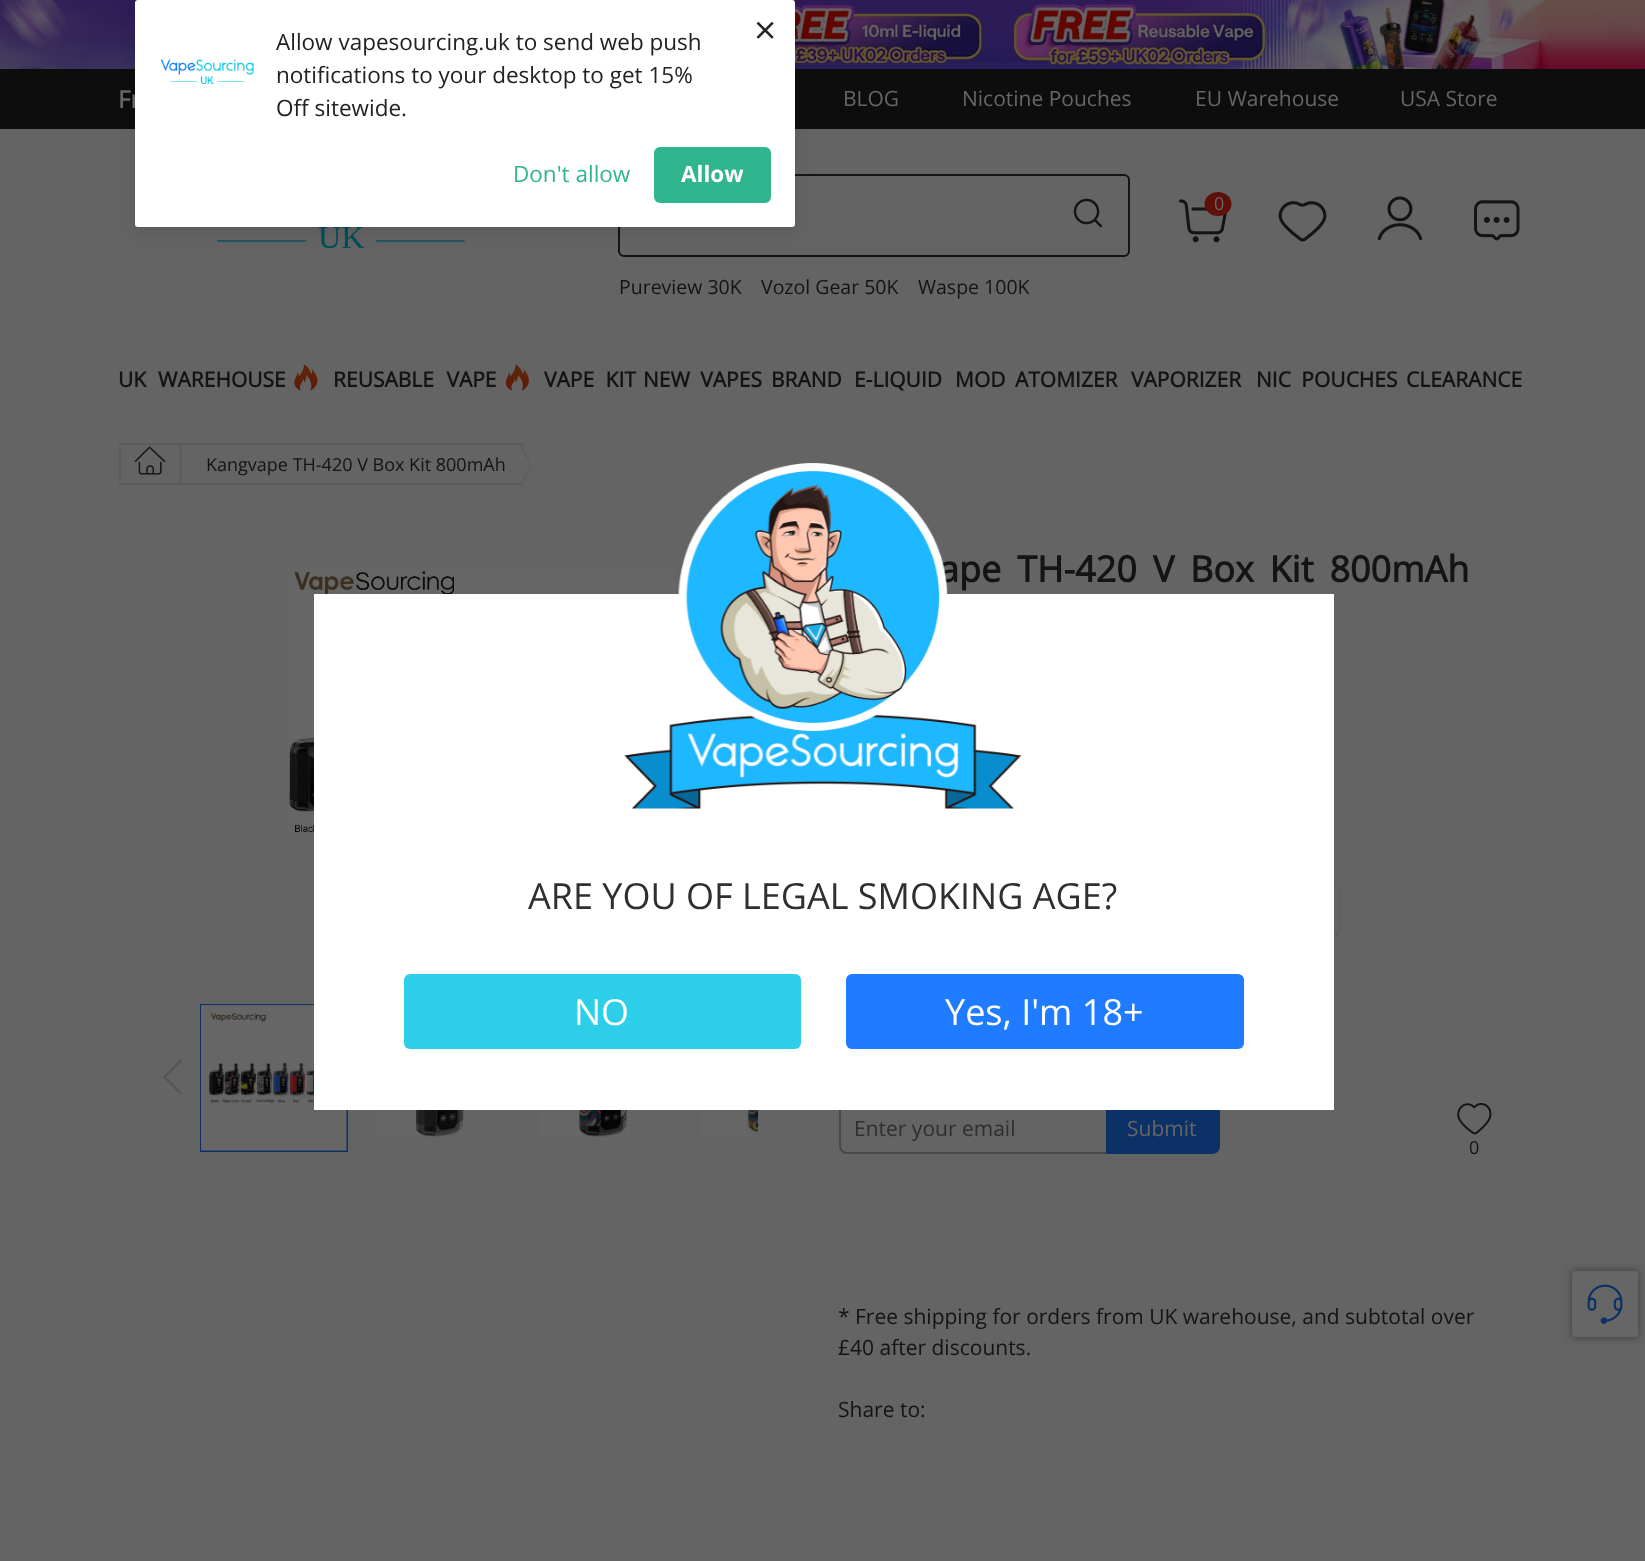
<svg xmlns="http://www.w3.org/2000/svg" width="1645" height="1561">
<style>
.a{font:bold 24px Open Sans;fill:#666}
.b{font:39px 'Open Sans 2';fill:#222}
.c{font:bold 22.5px 'Open Sans 2';fill:#fff}
.d{font:22.5px 'Open Sans 2';fill:#31b58e}
.e{font:22.5px 'Open Sans 2';fill:#222}
.f{font:21px Open Sans;fill:#666}
.g{font:bold 21px Open Sans;fill:#141414}
.h{font:18px Open Sans;fill:#666}
.i{font:19.5px Open Sans;fill:#141414}
.j{font:18px Open Sans;fill:#141414}
.k{font:bold 36px Open Sans;fill:#141414}
.l{font:21px Open Sans;fill:#2f2f2f}
.m{font:21px Open Sans;fill:#141414}
.n{font:36px Open Sans;fill:#2f2f2f}
.o{font:36px Open Sans;fill:#fff}
</style>
<defs>
<clipPath id="clip1"><path d="M1049 887h435v61H1049z"/></clipPath>
</defs>
<rect width="100%" height="100%" fill="#646464"/>
<image href="2.png" x="0" y="0" width="1645" height="69"/>
<path fill="#0d0d0d" d="M0 69h1645v60H0z"/>
<image href="5.png" x="217" y="227" width="248" height="21"/>
<rect fill="none" stroke="#141414" stroke-width="2" x="619" y="175" width="510" height="81" rx="5"/>
<rect fill="#0000001a" filter="blur(7.5px)" x="135" y="6" width="660" height="227" rx="3"/>
<image href="3.png" x="294" y="364" width="24" height="27"/>
<image href="4.png" x="505" y="364" width="24" height="27"/>
<image href="6.png" x="1179" y="199" width="48" height="44"/>
<ellipse fill="#5e100b" cx="1218" cy="204" rx="13.5" ry="12"/>
<image href="7.png" x="1278" y="201" width="49" height="41"/>
<image href="8.png" x="1377" y="196" width="46" height="45"/>
<image href="9.png" x="1474" y="200" width="46" height="41"/>
<image href="10.png" x="1073" y="198" width="30" height="30"/>
<path fill="none" stroke="#5c5c5c" stroke-width="2" d="M120 444h61v40H120z"/>
<image href="11.png" x="134" y="446" width="32" height="29"/>
<path fill="#5c5c5c" d="M182 443h340v2H182z"/>
<path fill="#5c5c5c" d="M521 443h2v42H521z"/>
<path fill="#5c5c5c" d="M182 483h340v2H182z"/>
<path fill="#5c5c5c" d="M520 488v-46l11 23z"/>
<path fill="#646464" d="M520 486v-42l10 21z"/>
<image href="12.png" x="287" y="567" width="388" height="266"/>
<image href="13.png" x="163" y="1059" width="19" height="36"/>
<path fill="none" stroke="#0c3166" stroke-width="2" d="M201 1005h146v146H201z"/>
<image href="14.png" x="201" y="1005" width="146" height="146"/>
<image href="15.png" x="375" y="1110" width="89" height="28"/>
<image href="16.png" x="538" y="1110" width="90" height="28"/>
<image href="17.png" x="702" y="1110" width="56" height="26"/>
<g clip-path="url(#clip1)">
<path fill="none" stroke="#5c5c5c" stroke-width="1.5" stroke-dasharray="4.5 3" d="M1264.5 887h70.5c3 0 5 2.5 5 5.5v37.5c0 3-2 5-5 5h-70.5c-3 0-5.5-2-5.5-5v-37.5c0-3 2.5-5.5 5.5-5.5z"/>
</g>
<path fill="none" stroke="#494949" stroke-width="2" d="M847 1104h289v49h-289c-4 0-7-3-7-7v-35c0-4 3-7 7-7z"/>
<path fill="#0c3166" d="M1106 1103h106c4.5 0 8 3.5 8 8v35c0 4.5-3.5 8-8 8h-106z"/>
<image href="18.png" x="1457" y="1103" width="35" height="32"/>
<path fill="#fff" d="M314 594h1020v516H314z"/>
<rect fill="#2dcee9" x="404" y="974" width="397" height="75" rx="6"/>
<rect fill="#1f7bff" x="846" y="974" width="398" height="75" rx="6"/>
<path fill="#313131cc" filter="blur(4.5px)" d="M1572 1271h66v66H1572z"/>
<rect fill="#666" x="1572" y="1271" width="66" height="66" rx="3"/>
<image href="20.png" x="1587" y="1284" width="36" height="40"/>
<text class="a" x="118" y="108" word-spacing="4">Fr</text>
<rect fill="#fff" x="135" width="660" height="227" rx="3"/>
<text class="b" x="754" y="44">×</text>
<image href="1.png" x="160" y="57" width="94" height="27"/>
<rect fill="#31b58e" x="654" y="147" width="117" height="56" rx="6"/>
<text class="c" x="681" y="182">Allow</text>
<text class="d" x="513" y="182">Don't allow</text>
<text class="e" x="276" y="116">Off sitewide.</text>
<text class="e" x="276" y="83">notifications to your desktop to get 15%</text>
<text class="e" x="276" y="50">Allow vapesourcing.uk to send web push</text>
<text class="f" x="843" y="106">BLOG</text>
<text class="f" x="962" y="106">Nicotine Pouches</text>
<text class="f" x="1195" y="106">EU Warehouse</text>
<text class="f" x="1400" y="106">USA Store</text>
<text class="g" x="118" y="387" word-spacing="6.5">UK WAREHOUSE</text>
<text class="g" x="333" y="387" word-spacing="7">REUSABLE VAPE</text>
<text class="g" x="544" y="387" word-spacing="6">VAPE KIT</text>
<text class="g" x="643" y="387" word-spacing="5">NEW VAPES</text>
<text class="g" x="771" y="387">BRAND</text>
<text class="g" x="854" y="387">E-LIQUID</text>
<text class="g" x="955" y="387">MOD</text>
<text class="g" x="1015" y="387">ATOMIZER</text>
<text class="g" x="1131" y="387">VAPORIZER</text>
<text class="g" x="1256" y="387" word-spacing="5">NIC POUCHES</text>
<text class="g" x="1406" y="387">CLEARANCE</text>
<text class="h" x="1214" y="210">0</text>
<text class="i" x="619" y="294">Pureview 30K</text>
<text class="i" x="761" y="294">Vozol Gear 50K</text>
<text class="i" x="918" y="294">Waspe 100K</text>
<text class="j" x="206" y="471">Kangvape TH-420 V Box Kit 800mAh</text>
<text class="k" x="939" y="582" word-spacing="6.5">ape TH-420 V Box Kit 800mAh</text>
<text class="l" x="854" y="1136">Enter your email</text>
<text class="f" x="1127" y="1136">Submit</text>
<text class="j" x="1469" y="1154">0</text>
<text class="m" x="838" y="1324">* Free shipping for orders from UK warehouse, and subtotal over</text>
<text class="m" x="838" y="1355">£40 after discounts.</text>
<text class="m" x="838" y="1417">Share to:</text>
<image href="19.png" x="624" y="463" width="398" height="346"/>
<text class="n" x="528" y="909">ARE YOU OF LEGAL SMOKING AGE?</text>
<text class="o" x="574" y="1025">NO</text>
<text class="o" x="945" y="1025">Yes, I'm 18+</text>
</svg>
